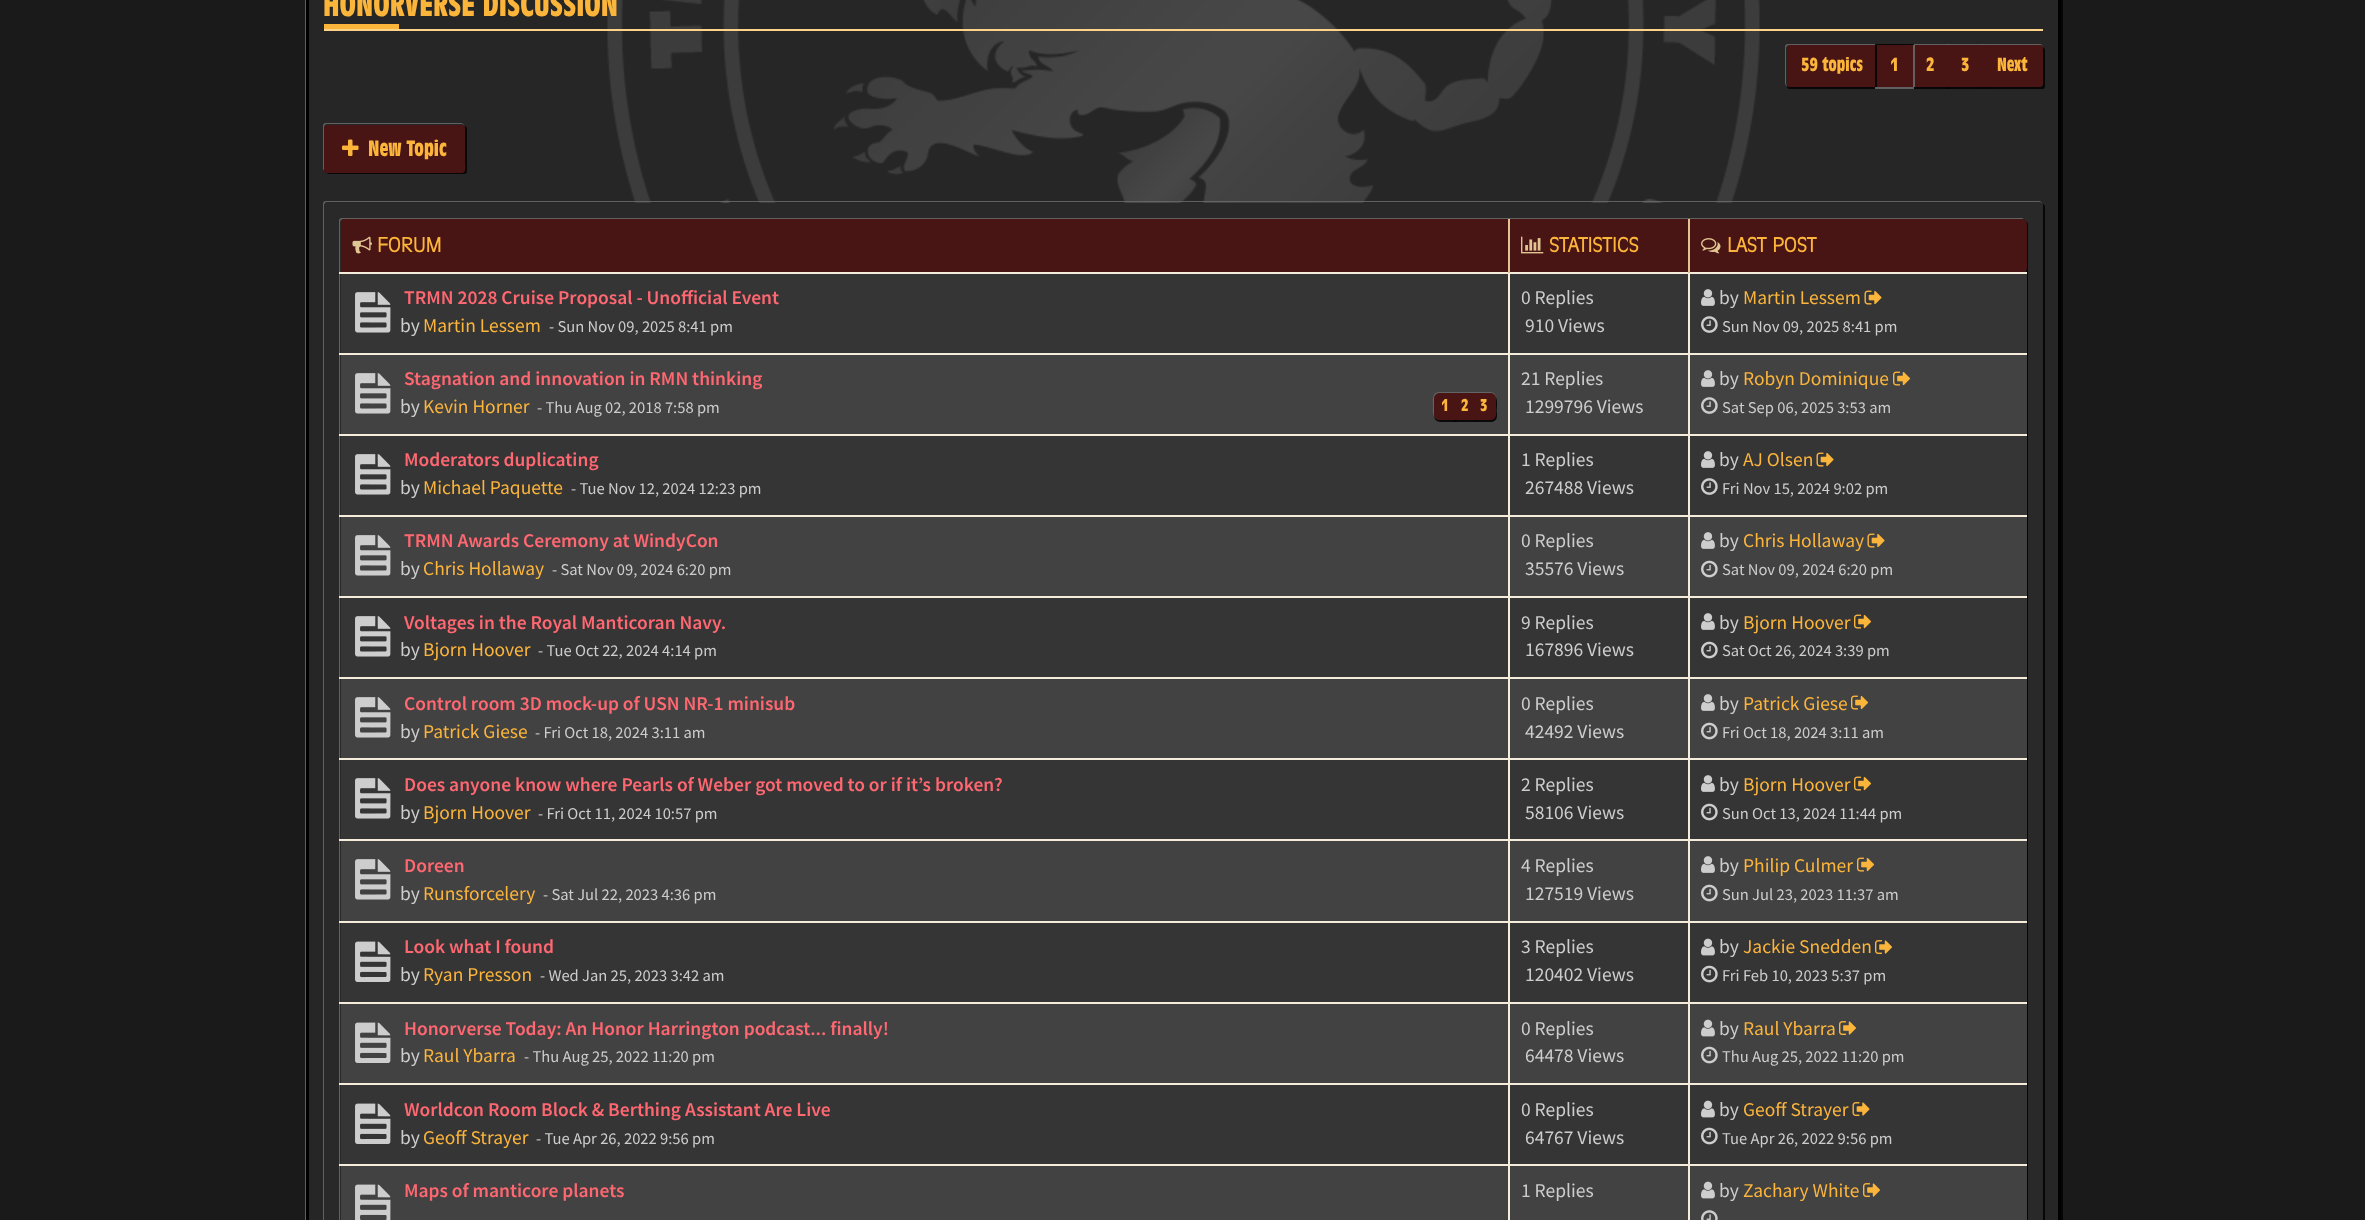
<svg xmlns="http://www.w3.org/2000/svg" width="2365" height="1220">
<style>
.a{font:bold 31.5px 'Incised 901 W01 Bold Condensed';fill:#fcb53b}
.b{font:bold 18px 'Incised 901 W01 Bold Condensed';fill:#fcb53b}
.c{font:bold 21px 'Incised 901 W01 Bold Condensed';fill:#fcb53b}
.d{font:bold 19.5px 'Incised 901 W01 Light';fill:#fcb53b}
.e{font:600 19.5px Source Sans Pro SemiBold;fill:#ff6771}
.f{font:19.5px Source Sans Pro;fill:#cdcdcd}
.g{font:19.5px Source Sans Pro;fill:#fcb53b}
.h{font:16.5px Source Sans Pro;fill:#cdcdcd}
.i{font:bold 16px 'Incised 901 W01 Bold Condensed';fill:#fcb53b}
</style>
<rect width="100%" height="100%" fill="#1a1a1a"/>
<path fill="#050506" d="M308 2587c1 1 2 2 3 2h1749c2 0 3-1 3-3v-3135c0-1-1-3-2-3v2v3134c0 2-1 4-3 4z"/>
<path fill="#606060" d="M308-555c-2 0-3 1-3 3v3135l1 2v-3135c0-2 1-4 3-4h1749l2 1c0-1-2-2-3-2z"/>
<path fill="#000" d="M306 0h1755v1220H306z"/>
<path fill="#262626" d="M309 0h1749v1220H309z"/>
<image href="1.png" x="607" y="0" width="1153" height="203"/>
<path fill="#fdd389" d="M324 29h1719v2H324z"/>
<path fill="#fcb53b" d="M324 24h75v5H324z"/>
<path fill="#070707" d="M1787 86c0 2 1 3 3 3h88v-2h-89z"/>
<path fill="#616161" d="M1788 44c-2 0-3 1-3 3v36c0 1 1 3 2 3l-1-2v-36c0-2 2-3 4-3h87v-1z"/>
<path fill="#491414" d="M1790 45h88v42h-88c-1.5 0-3-1.5-3-3v-36c0-1.5 1.5-3 3-3z"/>
<path fill="#070707" d="M1911 87v2h38v-42h-1v40z"/>
<path fill="#686868e6" d="M1875 87h39v2H1875z"/>
<path fill="#686868e6" d="M1911 44v1h37v41h1v-42z"/>
<path fill="#030304e6" d="M1875 44h39v1H1875z"/>
<path fill="#491414" d="M1878 45h35v42H1878z"/>
<path fill="#656060" d="M1913 45h2v42H1913z"/>
<path fill="#0a0506" d="M1875 45h2v42H1875z"/>
<path fill="#491414" d="M1915 45h31v42H1915z"/>
<path fill="#030304e6" d="M1946 87v2h39v-42h-1v40z"/>
<path fill="#686868e6" d="M1946 44v1h38v41h1v-42z"/>
<path fill="#491414" d="M1946 45h36v42H1946z"/>
<path fill="#030304e6" d="M1983 87v2h59c2 0 3-1 3-3v-36c0-1-1-2-2-3v31c0 2 1 9-3 9z"/>
<path fill="#686868e6" d="M1982 44v1h58c2 0 3 1 3 3c0-2-1-4-3-4z"/>
<path fill="#491414" d="M1982 45h58c1.5 0 3 1.5 3 3v36c0 1.5-1.5 3-3 3h-58z"/>
<path fill="#070707" d="M326 172c1 1 2 2 3 2h135c2 0 3-1 3-3v-42c0-1-1-3-2-3v36c0 2 2 10-3 10z"/>
<path fill="#616161" d="M326 123c-2 0-3 1-3 3v42c0 1 0 2 1 2v-42c0-2 1-4 3-4h135l2 1c0-1-2-2-3-2z"/>
<rect fill="#491414" x="324" y="125" width="141" height="48" rx="3"/>
<image href="2.png" x="342" y="139" width="17" height="17"/>
<path fill="#070707" d="M326 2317c1 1 2 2 3 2h1713c2 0 3-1 3-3v-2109c0-1-1-3-2-3v2v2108c0 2-1 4-3 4z"/>
<path fill="#686868e6" d="M326 201c-2 0-3 1-3 3v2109l1 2v-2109c0-2 1-4 3-4h1713l2 1c0-1-2-2-3-2z"/>
<rect fill="#29292a" x="324" y="203" width="1719" height="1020" rx="3"/>
<path fill="#070708" d="M342 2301c0 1 2 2 3 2h1680c2 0 3-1 3-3v-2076c0-1-1-2-2-3v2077c0 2-1 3-2 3h-1680z"/>
<path fill="#626262" d="M342 218c-2 0-3 1-3 3v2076c0 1 1 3 2 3l-1-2v-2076c0-2 2-3 4-3h1680l-2-1z"/>
<path fill="#491414" d="M344 219h1165v53h-1168v-50c0-1.5 1.5-3 3-3z"/>
<image href="3.png" x="352" y="236" width="20" height="18"/>
<path fill="#491414" d="M1510 219h178v53H1510z"/>
<path fill="#f5ecdb" d="M1688 272h339v2H1688z"/>
<path fill="#f5ecdb" d="M1688 353h339v2H1688z"/>
<path fill="#f5ecdb" d="M1688 434h339v2H1688z"/>
<path fill="#f5ecdb" d="M1688 515h339v2H1688z"/>
<path fill="#f5ecdb" d="M1688 596h339v2H1688z"/>
<path fill="#f5ecdb" d="M1688 677h339v2H1688z"/>
<path fill="#f5ecdb" d="M1688 758h339v2H1688z"/>
<path fill="#f5ecdb" d="M1688 839h339v2H1688z"/>
<path fill="#f5ecdb" d="M1688 921h339v2H1688z"/>
<path fill="#f5ecdb" d="M1688 1002h339v2H1688z"/>
<path fill="#f5ecdb" d="M1688 1083h339v2H1688z"/>
<path fill="#f5ecdb" d="M1688 1164h339v2H1688z"/>
<path fill="#f5ecdb" d="M1688 1164h2v56H1688z"/>
<path fill="#f5ecdb" d="M1508 1164h181v2H1508z"/>
<path fill="#f5ecdb" d="M1688 1083h2v83H1688z"/>
<path fill="#f5ecdb" d="M1508 1083h181v2H1508z"/>
<path fill="#f5ecdb" d="M1688 1002h2v83H1688z"/>
<path fill="#f5ecdb" d="M1508 1002h181v2H1508z"/>
<path fill="#f5ecdb" d="M1688 921h2v83H1688z"/>
<path fill="#f5ecdb" d="M1508 921h181v2H1508z"/>
<path fill="#f5ecdb" d="M1688 839h2v84H1688z"/>
<path fill="#f5ecdb" d="M1508 839h181v2H1508z"/>
<path fill="#f5ecdb" d="M1688 758h2v82H1688z"/>
<path fill="#f5ecdb" d="M1508 758h181v2H1508z"/>
<path fill="#f5ecdb" d="M1688 677h2v82H1688z"/>
<path fill="#f5ecdb" d="M1508 677h181v2H1508z"/>
<path fill="#f5ecdb" d="M1688 596h2v82H1688z"/>
<path fill="#f5ecdb" d="M1508 596h181v2H1508z"/>
<path fill="#f5ecdb" d="M1688 515h2v82H1688z"/>
<path fill="#f5ecdb" d="M1508 515h181v2H1508z"/>
<path fill="#f5ecdb" d="M1688 434h2v82H1688z"/>
<path fill="#f5ecdb" d="M1508 434h181v2H1508z"/>
<path fill="#f5ecdb" d="M1688 353h2v82H1688z"/>
<path fill="#f5ecdb" d="M1508 353h181v2H1508z"/>
<path fill="#f5ecdb" d="M1688 272h2v82H1688z"/>
<path fill="#f5ecdb" d="M1508 272h181v2H1508z"/>
<path fill="#f5ecdb" d="M1508 1164h2v56H1508z"/>
<path fill="#f5ecdb" d="M339 1164h1170v2H339z"/>
<path fill="#f5ecdb" d="M1508 1083h2v83H1508z"/>
<path fill="#f5ecdb" d="M339 1083h1170v2H339z"/>
<path fill="#f5ecdb" d="M1508 1002h2v83H1508z"/>
<path fill="#f5ecdb" d="M339 1002h1170v2H339z"/>
<path fill="#f5ecdb" d="M1508 921h2v83H1508z"/>
<path fill="#f5ecdb" d="M339 921h1170v2H339z"/>
<path fill="#f5ecdb" d="M1508 839h2v84H1508z"/>
<path fill="#f5ecdb" d="M339 839h1170v2H339z"/>
<path fill="#f5ecdb" d="M1508 758h2v82H1508z"/>
<path fill="#f5ecdb" d="M339 758h1170v2H339z"/>
<path fill="#f5ecdb" d="M1508 677h2v82H1508z"/>
<path fill="#f5ecdb" d="M339 677h1170v2H339z"/>
<path fill="#f5ecdb" d="M1508 596h2v82H1508z"/>
<path fill="#f5ecdb" d="M339 596h1170v2H339z"/>
<path fill="#f5ecdb" d="M1508 515h2v82H1508z"/>
<path fill="#f5ecdb" d="M339 515h1170v2H339z"/>
<path fill="#f5ecdb" d="M1508 434h2v82H1508z"/>
<path fill="#f5ecdb" d="M339 434h1170v2H339z"/>
<path fill="#f5ecdb" d="M1508 353h2v82H1508z"/>
<path fill="#f5ecdb" d="M339 353h1170v2H339z"/>
<path fill="#f5ecdb" d="M1508 272h2v82H1508z"/>
<path fill="#f5ecdb" d="M339 272h1170v2H339z"/>
<path fill="#e1c592" d="M1508 219h2v54H1508z"/>
<image href="4.png" x="1521" y="236" width="23" height="18"/>
<path fill="#491414" d="M1689 219h333c3 0 5 2 5 5v45c0 1.5-1.5 3-3 3h-335z"/>
<path fill="#e1c592" d="M1688 219h2v54H1688z"/>
<image href="5.png" x="1701" y="238" width="20" height="16"/>
<path fill="#353536" d="M341 274h1167v79H341z"/>
<image href="6.png" x="355" y="292" width="36" height="41"/>
<path fill="#353536" d="M1510 274h178v79H1510z"/>
<path fill="#353536" d="M1690 274h337v79H1690z"/>
<image href="7.png" x="1701" y="289" width="14" height="17"/>
<image href="8.png" x="1864" y="290" width="18" height="15"/>
<image href="9.png" x="1701" y="316" width="17" height="17"/>
<path fill="#424243" d="M341 355h1167v79H341z"/>
<image href="10.png" x="355" y="373" width="36" height="41"/>
<path fill="#09090a" d="M1434 414c0 8.5 4.5 8 11.5 8h11.5v-27h-.5v25h-16.5c-3.5 0-6-2.5-6-6z"/>
<path fill="#646464" d="M1439 392c-7.5 0-6 8.5-6 13.5c0 4-1 9.5 2.5 12c-1-1-1.5-2-1.5-3.5v-15c0-3.5 2.5-6 6-6h15v-1z"/>
<path fill="#491414" d="M1440 393h17v27h-17c-3.5 0-6-2.5-6-6v-15c0-3.5 2.5-6 6-6z"/>
<path fill="#030304e6" d="M1454 420h22v2H1454z"/>
<path fill="#686868e6" d="M1454 392h22v1H1454z"/>
<path fill="#491414" d="M1457 393h16v27H1457z"/>
<path fill="#030304e6" d="M1475 420v2h16c3.5 0 6-2.5 6-6v-15c0-2-1-3.5-2-4.5l.5 2.5v15c0 3.5-2.5 6-6 6z"/>
<path fill="#686868e6" d="M1473 392v1h16.5c3.5 0 6 2.5 6 6v15l-.5 2c2-2.5 1-7.5 1-10.5c0-5 1.5-13.5-6-13.5z"/>
<path fill="#491414" d="M1473 393h17c3.5 0 6 2.5 6 6v15c0 3.5-2.5 6-6 6h-17z"/>
<path fill="#424243" d="M1510 355h178v79H1510z"/>
<path fill="#424243" d="M1690 355h337v79H1690z"/>
<image href="11.png" x="1701" y="370" width="14" height="17"/>
<image href="12.png" x="1893" y="371" width="17" height="15"/>
<image href="13.png" x="1701" y="397" width="17" height="17"/>
<path fill="#353536" d="M341 436h1167v79H341z"/>
<image href="6.png" x="355" y="454" width="36" height="41"/>
<path fill="#353536" d="M1510 436h178v79H1510z"/>
<path fill="#353536" d="M1690 436h337v79H1690z"/>
<image href="7.png" x="1701" y="451" width="14" height="17"/>
<image href="8.png" x="1816" y="452" width="18" height="15"/>
<image href="9.png" x="1701" y="478" width="17" height="17"/>
<path fill="#424243" d="M341 517h1167v79H341z"/>
<image href="10.png" x="355" y="535" width="36" height="41"/>
<path fill="#424243" d="M1510 517h178v79H1510z"/>
<path fill="#424243" d="M1690 517h337v79H1690z"/>
<image href="11.png" x="1701" y="532" width="14" height="17"/>
<image href="14.png" x="1867" y="533" width="18" height="15"/>
<image href="15.png" x="1701" y="560" width="17" height="18"/>
<path fill="#353536" d="M341 598h1167v79H341z"/>
<image href="6.png" x="355" y="616" width="36" height="41"/>
<path fill="#353536" d="M1510 598h178v79H1510z"/>
<path fill="#353536" d="M1690 598h337v79H1690z"/>
<image href="7.png" x="1701" y="613" width="14" height="17"/>
<image href="16.png" x="1854" y="614" width="17" height="15"/>
<image href="17.png" x="1701" y="641" width="17" height="18"/>
<path fill="#424243" d="M341 679h1167v79H341z"/>
<image href="10.png" x="355" y="697" width="36" height="41"/>
<path fill="#424243" d="M1510 679h178v79H1510z"/>
<path fill="#424243" d="M1690 679h337v79H1690z"/>
<image href="11.png" x="1701" y="694" width="14" height="17"/>
<image href="12.png" x="1851" y="695" width="17" height="15"/>
<image href="15.png" x="1701" y="722" width="17" height="18"/>
<path fill="#353536" d="M341 760h1167v79H341z"/>
<image href="6.png" x="355" y="778" width="36" height="41"/>
<path fill="#353536" d="M1510 760h178v79H1510z"/>
<path fill="#353536" d="M1690 760h337v79H1690z"/>
<image href="7.png" x="1701" y="775" width="14" height="17"/>
<image href="16.png" x="1854" y="776" width="17" height="15"/>
<image href="17.png" x="1701" y="803" width="17" height="18"/>
<path fill="#424243" d="M341 841h1167v80H341z"/>
<image href="10.png" x="355" y="859" width="36" height="41"/>
<path fill="#424243" d="M1510 841h178v80H1510z"/>
<path fill="#424243" d="M1690 841h337v80H1690z"/>
<image href="11.png" x="1701" y="856" width="14" height="17"/>
<image href="12.png" x="1857" y="857" width="17" height="15"/>
<image href="15.png" x="1701" y="884" width="17" height="18"/>
<path fill="#353536" d="M341 923h1167v79H341z"/>
<image href="18.png" x="355" y="941" width="36" height="41"/>
<path fill="#353536" d="M1510 923h178v79H1510z"/>
<path fill="#353536" d="M1690 923h337v79H1690z"/>
<image href="19.png" x="1701" y="938" width="14" height="18"/>
<image href="20.png" x="1875" y="940" width="17" height="14"/>
<image href="17.png" x="1701" y="965" width="17" height="18"/>
<path fill="#424243" d="M341 1004h1167v79H341z"/>
<image href="21.png" x="355" y="1022" width="36" height="41"/>
<path fill="#424243" d="M1510 1004h178v79H1510z"/>
<path fill="#424243" d="M1690 1004h337v79H1690z"/>
<image href="22.png" x="1701" y="1019" width="14" height="18"/>
<image href="23.png" x="1839" y="1021" width="17" height="14"/>
<image href="15.png" x="1701" y="1046" width="17" height="18"/>
<path fill="#353536" d="M341 1085h1167v79H341z"/>
<image href="18.png" x="355" y="1103" width="36" height="41"/>
<path fill="#353536" d="M1510 1085h178v79H1510z"/>
<path fill="#353536" d="M1690 1085h337v79H1690z"/>
<image href="19.png" x="1701" y="1100" width="14" height="18"/>
<image href="24.png" x="1852" y="1102" width="18" height="14"/>
<image href="17.png" x="1701" y="1127" width="17" height="18"/>
<path fill="#424243" d="M341 1166h1167v54H341z"/>
<image href="25.png" x="355" y="1184" width="36" height="36"/>
<path fill="#424243" d="M1510 1166h178v54H1510z"/>
<path fill="#424243" d="M1690 1166h337v54H1690z"/>
<image href="22.png" x="1701" y="1181" width="14" height="18"/>
<image href="23.png" x="1863" y="1183" width="17" height="14"/>
<image href="26.png" x="1701" y="1210" width="17" height="10"/>
<text class="a" x="323" y="16">HONORVERSE DISCUSSION</text>
<text class="b" x="1801" y="71">59 topics</text>
<text class="b" x="1890" y="71">1</text>
<text class="b" x="1926" y="71">2</text>
<text class="b" x="1961" y="71">3</text>
<text class="b" x="1997" y="71">Next</text>
<text class="c" x="368" y="156">New Topic</text>
<text class="d" x="377" y="252">FORUM</text>
<text class="d" x="1549" y="252">STATISTICS</text>
<text class="d" x="1727" y="252">LAST POST</text>
<text class="e" x="404" y="304">TRMN 2028 Cruise Proposal - Unofficial Event</text>
<text class="f" x="400" y="332">by</text>
<text class="g" x="423" y="332">Martin Lessem</text>
<text class="h" x="549" y="332">- Sun Nov 09, 2025 8:41 pm</text>
<text class="f" x="1521" y="304">0 Replies</text>
<text class="f" x="1525" y="332">910 Views</text>
<text class="f" x="1719" y="304">by</text>
<text class="g" x="1743" y="304">Martin Lessem</text>
<text class="h" x="1722" y="332">Sun Nov 09, 2025 8:41 pm</text>
<text class="e" x="404" y="385">Stagnation and innovation in RMN thinking</text>
<text class="f" x="400" y="413">by</text>
<text class="g" x="423" y="413">Kevin Horner</text>
<text class="h" x="537" y="413">- Thu Aug 02, 2018 7:58 pm</text>
<text class="i" x="1441" y="411">1</text>
<text class="i" x="1461" y="411">2</text>
<text class="i" x="1480" y="411">3</text>
<text class="f" x="1521" y="385">21 Replies</text>
<text class="f" x="1525" y="413">1299796 Views</text>
<text class="f" x="1719" y="385">by</text>
<text class="g" x="1743" y="385">Robyn Dominique</text>
<text class="h" x="1722" y="413">Sat Sep 06, 2025 3:53 am</text>
<text class="e" x="404" y="466">Moderators duplicating</text>
<text class="f" x="400" y="494">by</text>
<text class="g" x="423" y="494">Michael Paquette</text>
<text class="h" x="571" y="494">- Tue Nov 12, 2024 12:23 pm</text>
<text class="f" x="1521" y="466">1 Replies</text>
<text class="f" x="1525" y="494">267488 Views</text>
<text class="f" x="1719" y="466">by</text>
<text class="g" x="1743" y="466">AJ Olsen</text>
<text class="h" x="1722" y="494">Fri Nov 15, 2024 9:02 pm</text>
<text class="e" x="404" y="547">TRMN Awards Ceremony at WindyCon</text>
<text class="f" x="400" y="575">by</text>
<text class="g" x="423" y="575">Chris Hollaway</text>
<text class="h" x="552" y="575">- Sat Nov 09, 2024 6:20 pm</text>
<text class="f" x="1521" y="547">0 Replies</text>
<text class="f" x="1525" y="575">35576 Views</text>
<text class="f" x="1719" y="547">by</text>
<text class="g" x="1743" y="547">Chris Hollaway</text>
<text class="h" x="1722" y="575">Sat Nov 09, 2024 6:20 pm</text>
<text class="e" x="404" y="629">Voltages in the Royal Manticoran Navy.</text>
<text class="f" x="400" y="656">by</text>
<text class="g" x="423" y="656">Bjorn Hoover</text>
<text class="h" x="538" y="656">- Tue Oct 22, 2024 4:14 pm</text>
<text class="f" x="1521" y="629">9 Replies</text>
<text class="f" x="1525" y="656">167896 Views</text>
<text class="f" x="1719" y="629">by</text>
<text class="g" x="1743" y="629">Bjorn Hoover</text>
<text class="h" x="1722" y="656">Sat Oct 26, 2024 3:39 pm</text>
<text class="e" x="404" y="710">Control room 3D mock-up of USN NR-1 minisub</text>
<text class="f" x="400" y="738">by</text>
<text class="g" x="423" y="738">Patrick Giese</text>
<text class="h" x="535" y="738">- Fri Oct 18, 2024 3:11 am</text>
<text class="f" x="1521" y="710">0 Replies</text>
<text class="f" x="1525" y="738">42492 Views</text>
<text class="f" x="1719" y="710">by</text>
<text class="g" x="1743" y="710">Patrick Giese</text>
<text class="h" x="1722" y="738">Fri Oct 18, 2024 3:11 am</text>
<text class="e" x="404" y="791">Does anyone know where Pearls of Weber got moved to or if it’s broken?</text>
<text class="f" x="400" y="819">by</text>
<text class="g" x="423" y="819">Bjorn Hoover</text>
<text class="h" x="538" y="819">- Fri Oct 11, 2024 10:57 pm</text>
<text class="f" x="1521" y="791">2 Replies</text>
<text class="f" x="1525" y="819">58106 Views</text>
<text class="f" x="1719" y="791">by</text>
<text class="g" x="1743" y="791">Bjorn Hoover</text>
<text class="h" x="1722" y="819">Sun Oct 13, 2024 11:44 pm</text>
<text class="e" x="404" y="872">Doreen</text>
<text class="f" x="400" y="900">by</text>
<text class="g" x="423" y="900">Runsforcelery</text>
<text class="h" x="543" y="900">- Sat Jul 22, 2023 4:36 pm</text>
<text class="f" x="1521" y="872">4 Replies</text>
<text class="f" x="1525" y="900">127519 Views</text>
<text class="f" x="1719" y="872">by</text>
<text class="g" x="1743" y="872">Philip Culmer</text>
<text class="h" x="1722" y="900">Sun Jul 23, 2023 11:37 am</text>
<text class="e" x="404" y="953">Look what I found</text>
<text class="f" x="400" y="981">by</text>
<text class="g" x="423" y="981">Ryan Presson</text>
<text class="h" x="540" y="981">- Wed Jan 25, 2023 3:42 am</text>
<text class="f" x="1521" y="953">3 Replies</text>
<text class="f" x="1525" y="981">120402 Views</text>
<text class="f" x="1719" y="953">by</text>
<text class="g" x="1743" y="953">Jackie Snedden</text>
<text class="h" x="1722" y="981">Fri Feb 10, 2023 5:37 pm</text>
<text class="e" x="404" y="1035">Honorverse Today: An Honor Harrington podcast... finally!</text>
<text class="f" x="400" y="1062">by</text>
<text class="g" x="423" y="1062">Raul Ybarra</text>
<text class="h" x="524" y="1062">- Thu Aug 25, 2022 11:20 pm</text>
<text class="f" x="1521" y="1035">0 Replies</text>
<text class="f" x="1525" y="1062">64478 Views</text>
<text class="f" x="1719" y="1035">by</text>
<text class="g" x="1743" y="1035">Raul Ybarra</text>
<text class="h" x="1722" y="1062">Thu Aug 25, 2022 11:20 pm</text>
<text class="e" x="404" y="1116">Worldcon Room Block &amp; Berthing Assistant Are Live</text>
<text class="f" x="400" y="1144">by</text>
<text class="g" x="423" y="1144">Geoff Strayer</text>
<text class="h" x="536" y="1144">- Tue Apr 26, 2022 9:56 pm</text>
<text class="f" x="1521" y="1116">0 Replies</text>
<text class="f" x="1525" y="1144">64767 Views</text>
<text class="f" x="1719" y="1116">by</text>
<text class="g" x="1743" y="1116">Geoff Strayer</text>
<text class="h" x="1722" y="1144">Tue Apr 26, 2022 9:56 pm</text>
<text class="e" x="404" y="1197">Maps of manticore planets</text>
<text class="f" x="1521" y="1197">1 Replies</text>
<text class="f" x="1719" y="1197">by</text>
<text class="g" x="1743" y="1197">Zachary White</text>
</svg>
